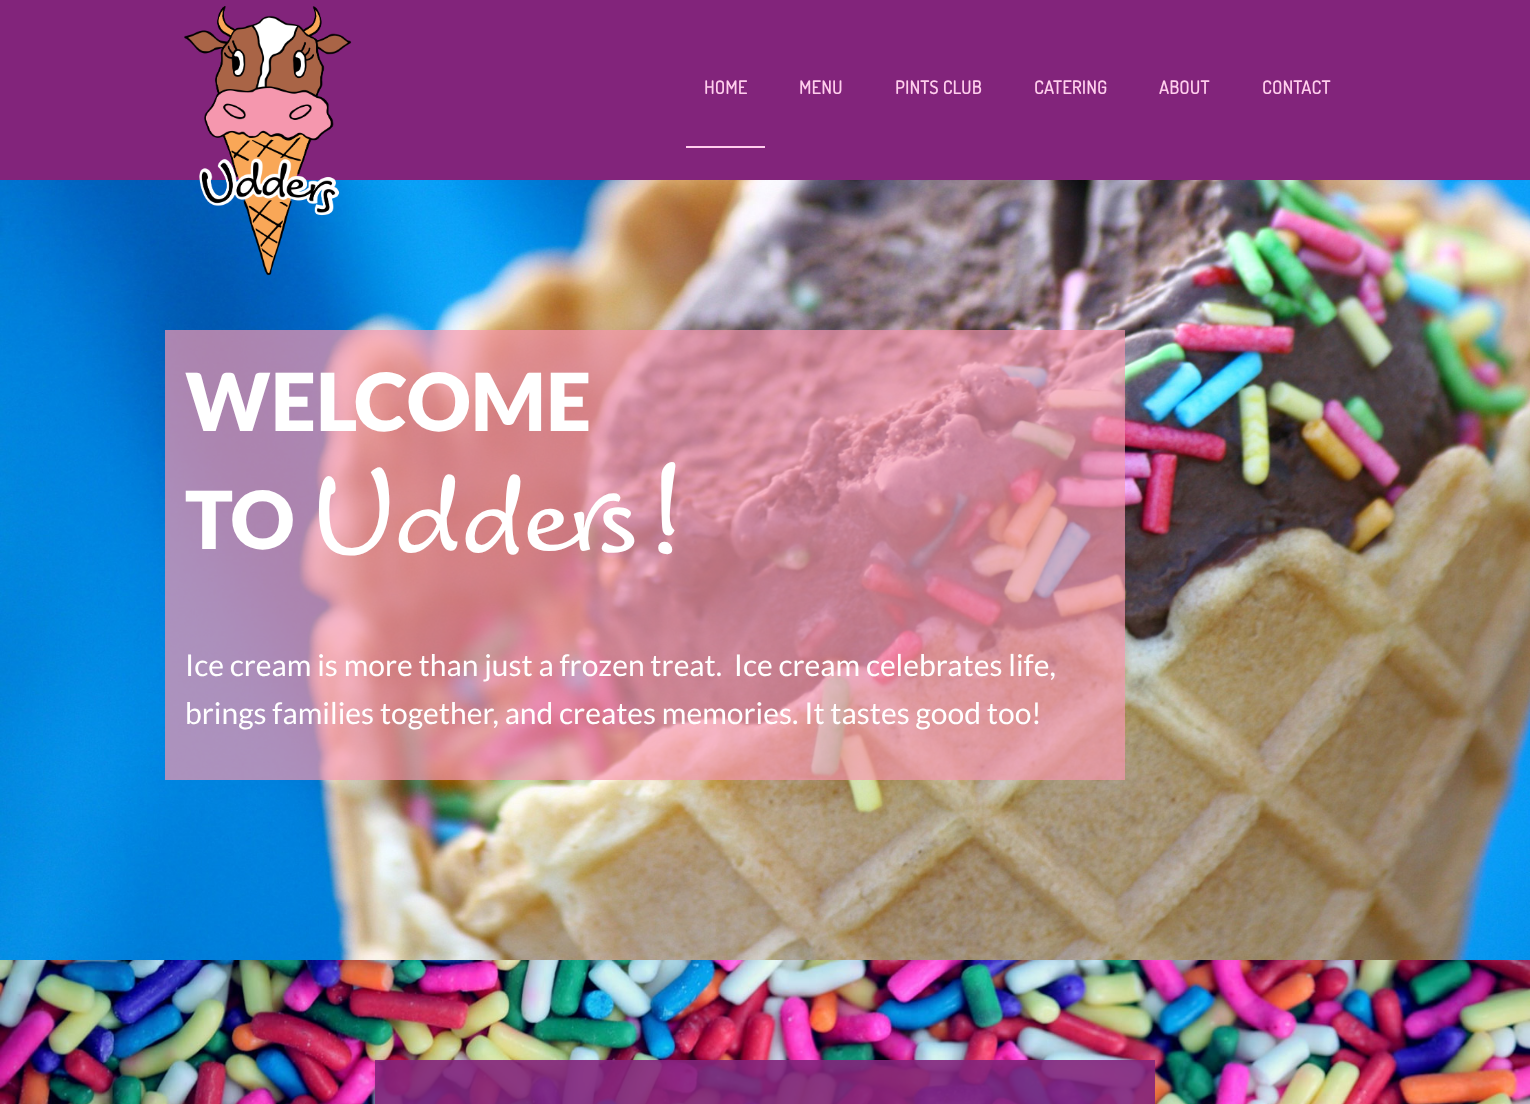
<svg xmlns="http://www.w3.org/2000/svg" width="1530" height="1104">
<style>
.a{font:bold 18px Dosis;letter-spacing:0.5px;fill:#ffceed}
.b{font:900 80px Lato;fill:#fff}
.c{font:112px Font;letter-spacing:-3px;fill:#fff}
.d{font:30px Lato;fill:#fff}
</style>
<rect width="100%" height="100%" fill="#fff"/>
<path fill="#82247b" d="M0 0h1530v180H0z"/>
<image href="2.png" x="0" y="180" width="1530" height="780"/>
<image href="1.png" x="184" y="6" width="168" height="270"/>
<path fill="#ffceed" d="M686 146h79v2H686z"/>
<path fill="#f597aeb3" d="M165 330h960v450H165z"/>
<image href="3.png" x="0" y="960" width="1530" height="144"/>
<path fill="#82247be6" d="M375 1060h780v44H375z"/>
<text class="a" x="704" y="94">HOME</text>
<text class="a" x="799" y="94">MENU</text>
<text class="a" x="895" y="94">PINTS CLUB</text>
<text class="a" x="1034" y="94">CATERING</text>
<text class="a" x="1159" y="94">ABOUT</text>
<text class="a" x="1262" y="94">CONTACT</text>
<text class="b" x="185" y="431">WELCOME</text>
<text class="b" x="185" y="549">TO</text>
<text class="c" x="310" y="549">Udders!</text>
<text class="d" xml:space="preserve" x="185" y="676">Ice cream is more than just a frozen treat.  Ice cream celebrates life,</text>
<text class="d" x="185" y="724">brings families together, and creates memories. It tastes good too!</text>
</svg>
